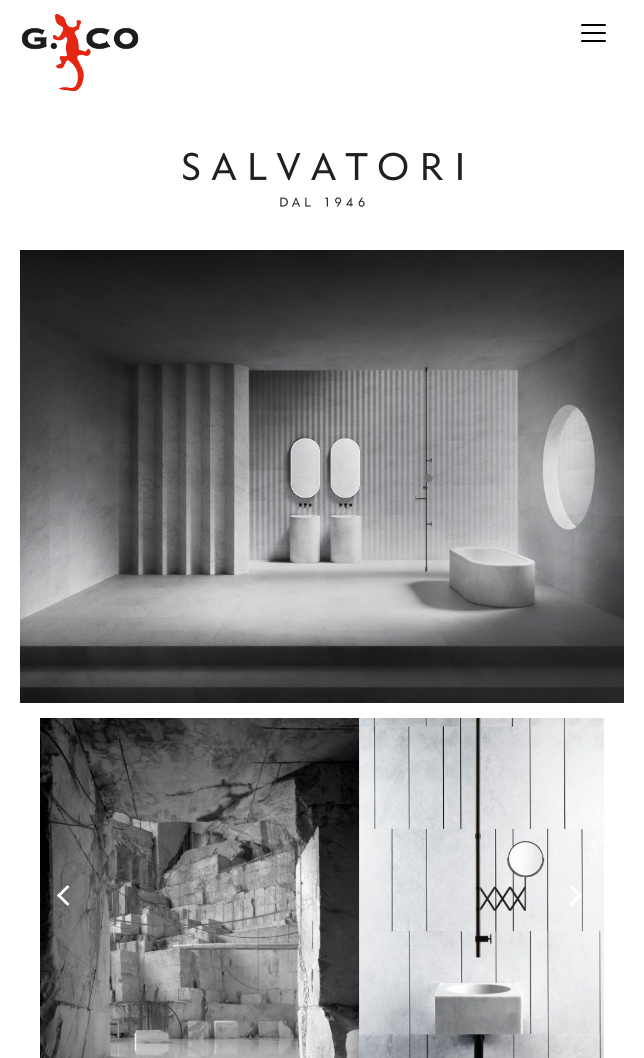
<svg xmlns="http://www.w3.org/2000/svg" width="644" height="1058">
<rect width="100%" height="100%" fill="#fff"/>
<image href="1.png" x="21" y="14" width="118" height="77"/>
<rect fill="#000" x="581" y="32" width="25" height="2" rx="1"/>
<rect fill="#000" x="581" y="24" width="25" height="2" rx="1"/>
<rect fill="#000" x="581" y="40" width="25" height="2" rx="1"/>
<image href="2.png" x="183" y="152" width="279" height="55"/>
<image href="3.png" x="20" y="250" width="604" height="453"/>
<image href="4.png" x="40" y="718" width="564" height="340"/>
<path fill="#fff" d="M57 895.5l10.5-10.5l2 2l-10.5 10.5z"/>
<path fill="#fff" d="M57 895.5l2-2l10.5 10.5l-2 2z"/>
<path fill="#fff" d="M582 895.5l-10.5 10.5l-2-2l10.5-10.5z"/>
<path fill="#fff" d="M582 895.5l-2 2l-10.5-10.5l2-2z"/>
</svg>
